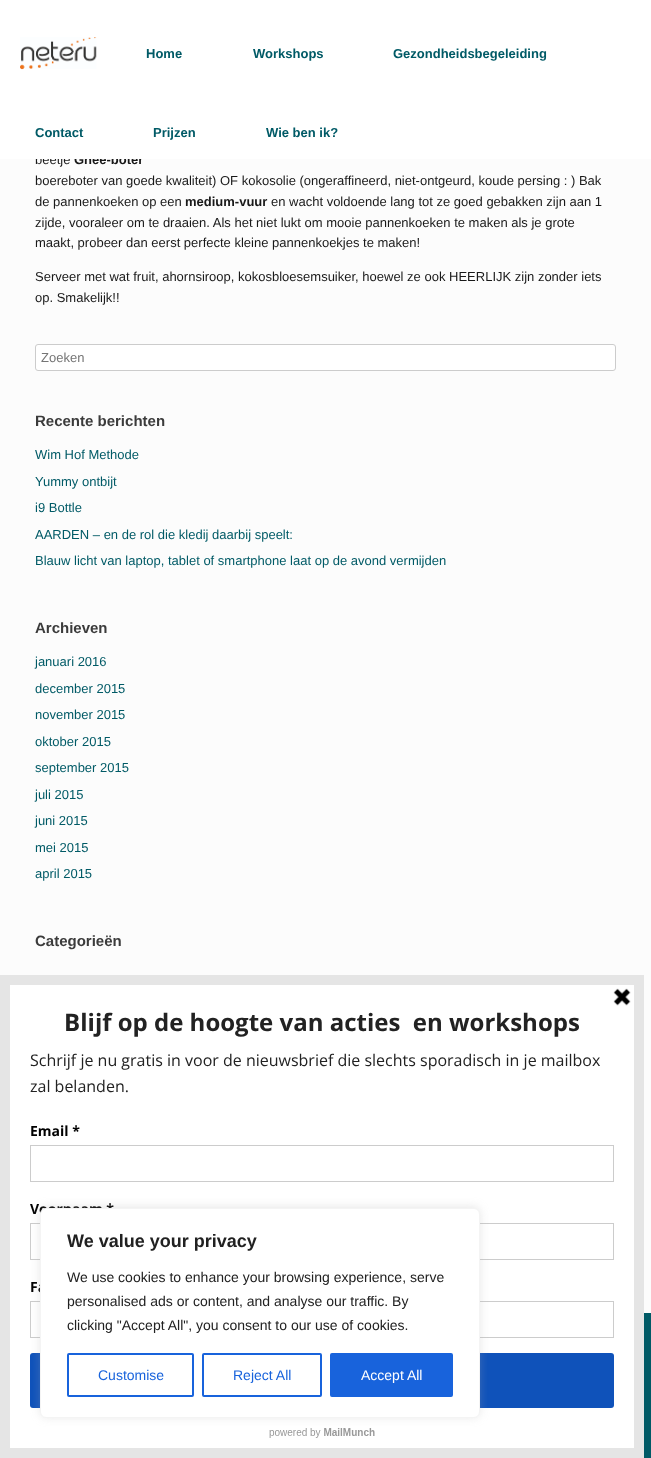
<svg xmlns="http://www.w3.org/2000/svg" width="651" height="1458">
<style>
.a{font:13px Liberation Sans;fill:#191919}
.b{font:bold 13px Liberation Sans;fill:#191919}
.c{font:bold 13px Liberation Sans;fill:#005a66}
.d{font:13px Liberation Sans;fill:#757575}
.e{font:bold 15px Liberation Sans;fill:#3b3b3b}
.f{font:13px Liberation Sans;fill:#005a66}
.g{font:bold 18px Liberation Sans;fill:#212121}
.h{font:14px Liberation Sans;fill:#212121}
.i{font:14px Liberation Sans;fill:#1863dc}
.j{font:14px Liberation Sans;fill:#fff}
</style>
<rect width="100%" height="100%" fill="#005a66"/>
<path fill="#fcfcfc" d="M0 159h651v1154H0z"/>
<rect fill="#fff" stroke="#ccc" x="35.5" y="344.5" width="580" height="26" rx="2.5"/>
<image href="2.png" x="0" y="975" width="644" height="483"/>
<rect fill="#acabab4d" filter="blur(5px)" x="40" y="1207" width="440" height="210" rx="6"/>
<rect fill="#fff" stroke="#f4f4f4" x="40.5" y="1208.5" width="439" height="209" rx="5.5"/>
<rect fill="none" stroke="#1863dc" stroke-width="2" x="68" y="1354" width="125" height="42" rx="1"/>
<rect fill="none" stroke="#1863dc" stroke-width="2" x="203" y="1354" width="118" height="42" rx="1"/>
<rect fill="#1863dc" stroke="#1863dc" stroke-width="2" x="331" y="1354" width="121" height="42" rx="1"/>
<text class="a" x="35" y="164">beetje</text>
<text class="b" x="74" y="164">Ghee-boter</text>
<path fill="#fff" d="M0 0h651v159H0z"/>
<text class="c" x="266" y="137">Wie ben ik?</text>
<text class="c" x="153" y="137">Prijzen</text>
<text class="c" x="35" y="137">Contact</text>
<text class="c" x="393" y="58">Gezondheidsbegeleiding</text>
<text class="c" x="253" y="58">Workshops</text>
<text class="c" x="146" y="58">Home</text>
<image href="1.png" x="20" y="37" width="77" height="33"/>
<text class="a" x="35" y="185">boereboter van goede kwaliteit) OF kokosolie (ongeraffineerd, niet-ontgeurd, koude persing : ) Bak</text>
<text class="a" x="35" y="206">de pannenkoeken op een</text>
<text class="b" x="185" y="206">medium-vuur</text>
<text class="a" x="271" y="206">en wacht voldoende lang tot ze goed gebakken zijn aan 1</text>
<text class="a" x="35" y="227">zijde, vooraleer om te draaien. Als het niet lukt om mooie pannenkoeken te maken als je grote</text>
<text class="a" x="35" y="247">maakt, probeer dan eerst perfecte kleine pannenkoekjes te maken!</text>
<text class="a" x="35" y="281">Serveer met wat fruit, ahornsiroop, kokosbloesemsuiker, hoewel ze ook HEERLIJK zijn zonder iets</text>
<text class="a" x="35" y="302">op. Smakelijk!!</text>
<text class="d" x="41" y="362">Zoeken</text>
<text class="e" x="35" y="426">Recente berichten</text>
<text class="f" x="35" y="459">Wim Hof Methode</text>
<text class="f" x="35" y="486">Yummy ontbijt</text>
<text class="f" x="35" y="512">i9 Bottle</text>
<text class="f" x="35" y="539">AARDEN – en de rol die kledij daarbij speelt:</text>
<text class="f" x="35" y="565">Blauw licht van laptop, tablet of smartphone laat op de avond vermijden</text>
<text class="e" x="35" y="633">Archieven</text>
<text class="f" x="35" y="666">januari 2016</text>
<text class="f" x="35" y="693">december 2015</text>
<text class="f" x="35" y="719">november 2015</text>
<text class="f" x="35" y="746">oktober 2015</text>
<text class="f" x="35" y="772">september 2015</text>
<text class="f" x="35" y="799">juli 2015</text>
<text class="f" x="35" y="825">juni 2015</text>
<text class="f" x="35" y="852">mei 2015</text>
<text class="f" x="35" y="878">april 2015</text>
<text class="e" x="35" y="946">Categorieën</text>
<text class="g" x="67" y="1247">We value your privacy</text>
<text class="h" x="67" y="1282">We use cookies to enhance your browsing experience, serve</text>
<text class="h" x="67" y="1306">personalised ads or content, and analyse our traffic. By</text>
<text class="h" x="67" y="1330">clicking "Accept All", you consent to our use of cookies.</text>
<text class="i" x="98" y="1380">Customise</text>
<text class="i" x="233" y="1380">Reject All</text>
<text class="j" x="361" y="1380">Accept All</text>
</svg>
